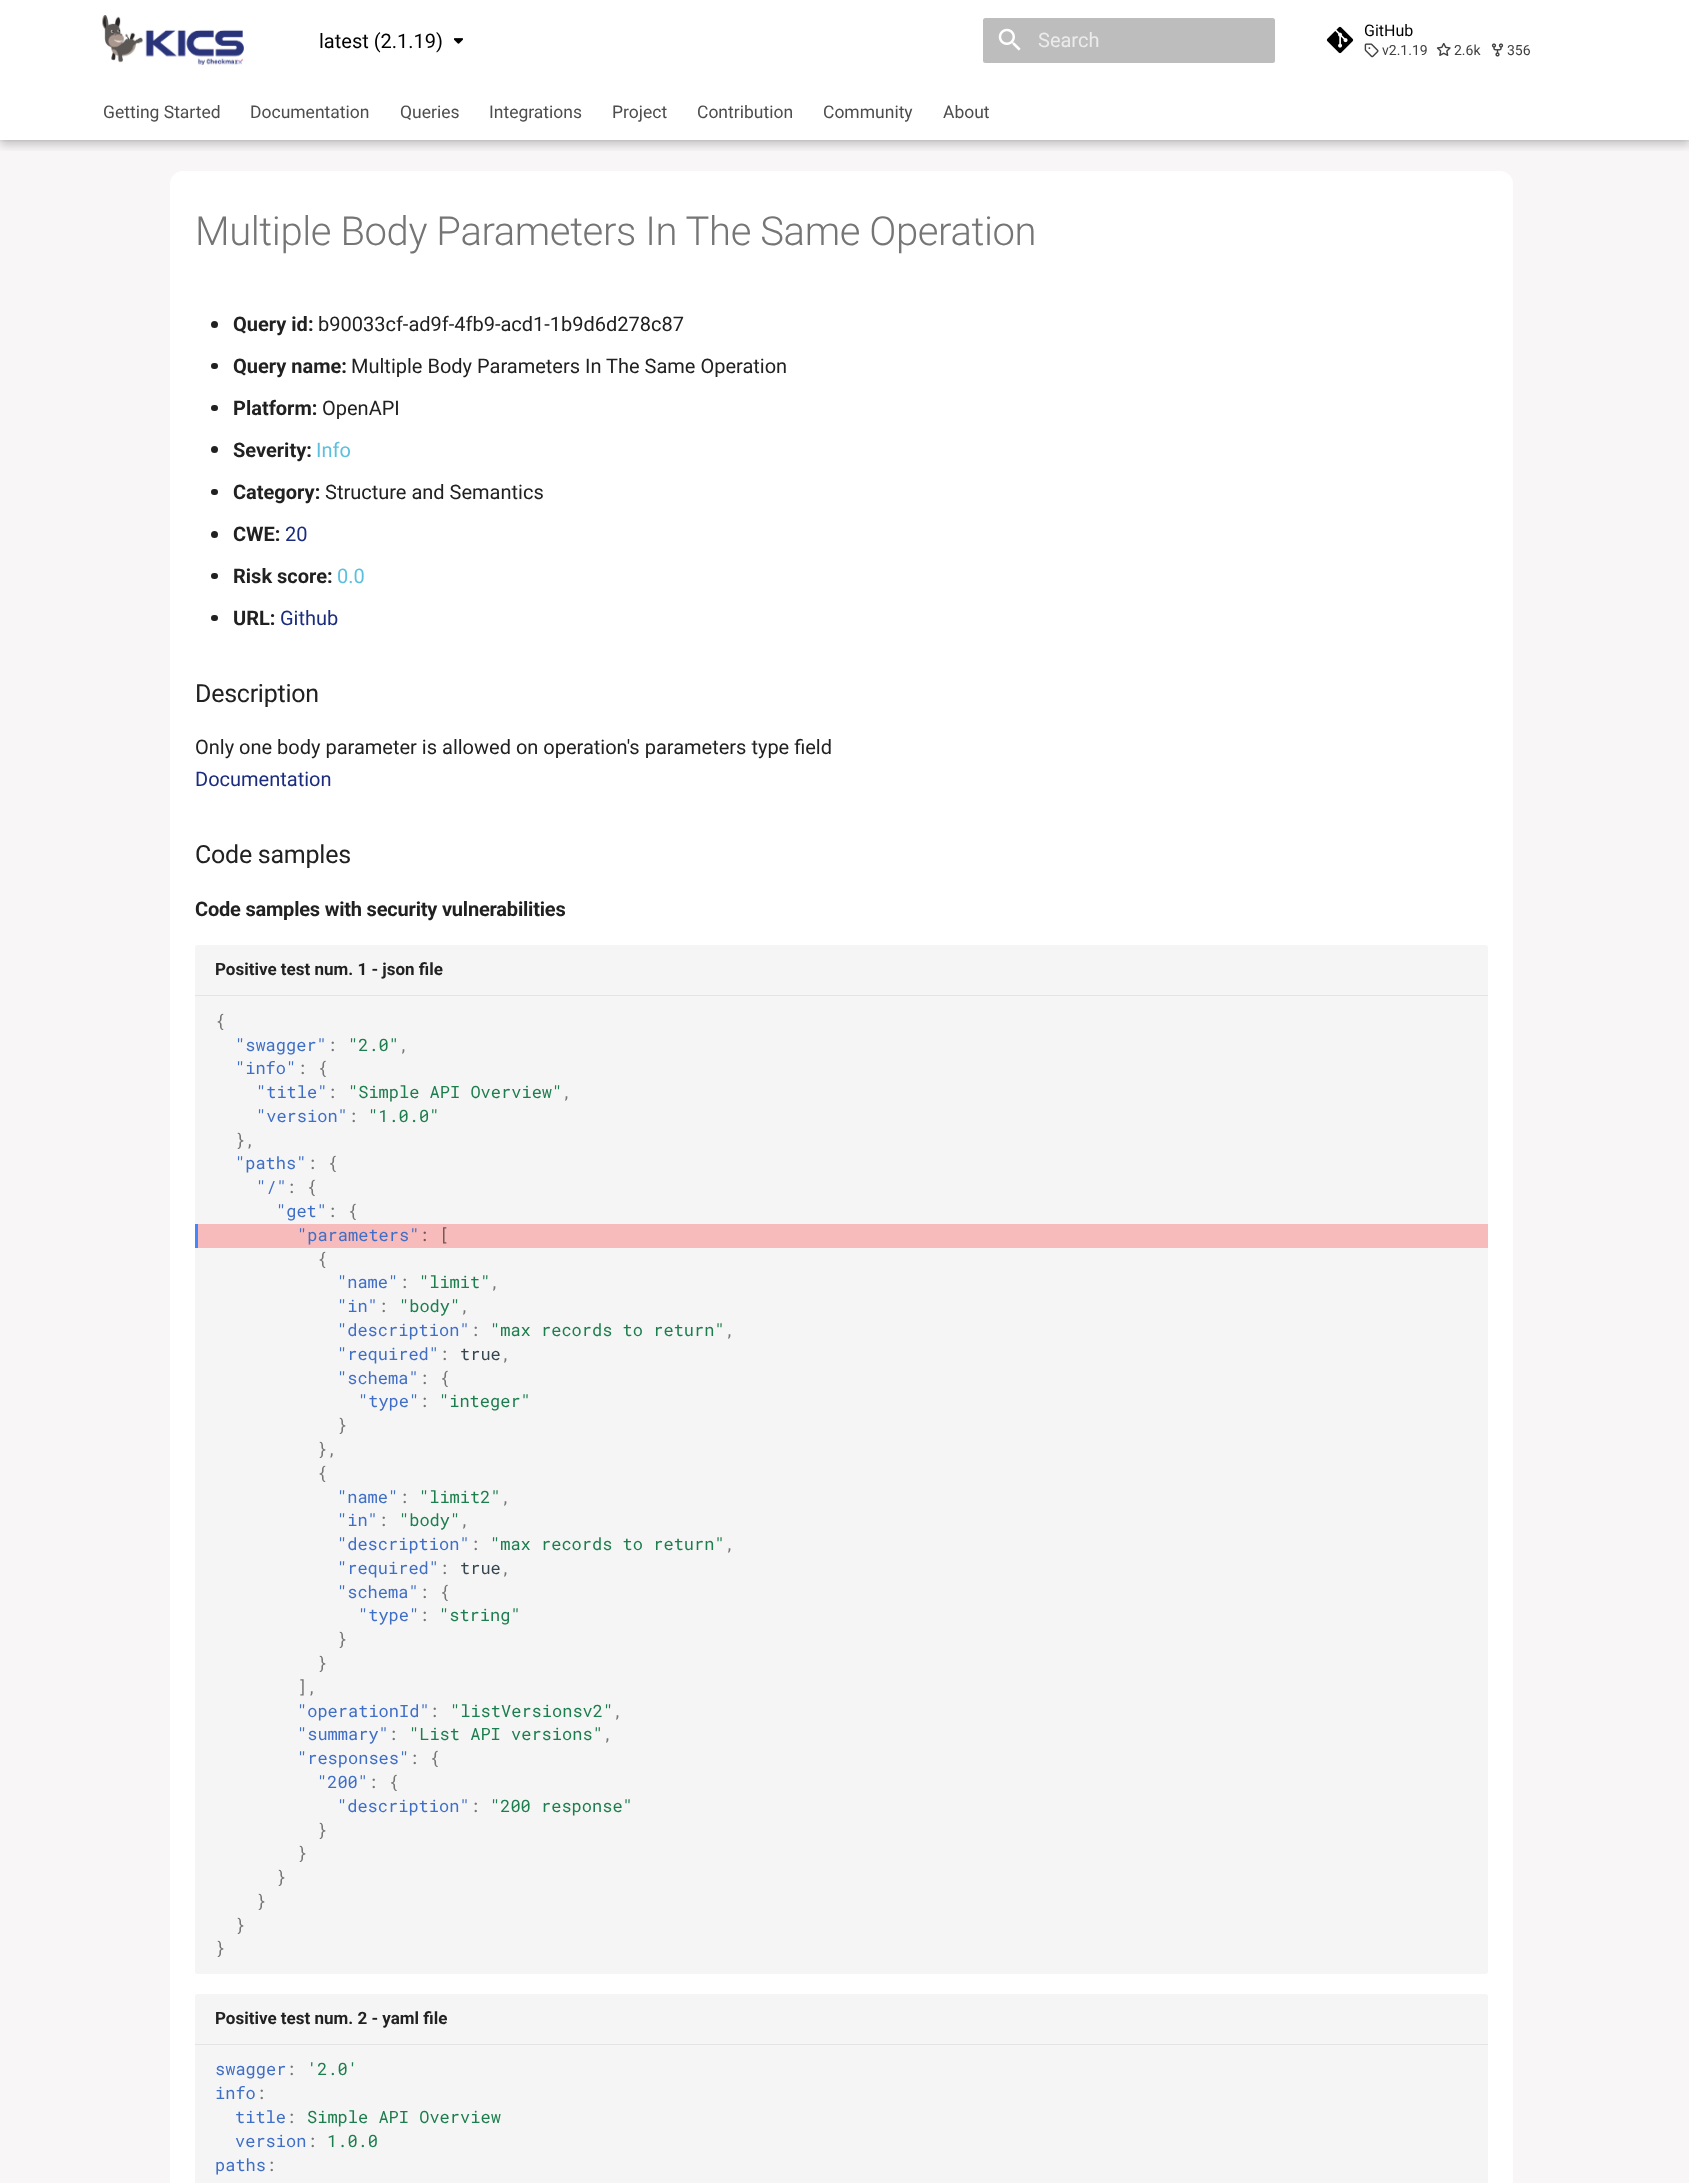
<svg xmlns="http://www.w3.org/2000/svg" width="1689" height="2183">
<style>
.a{font:20px Roboto;fill:#000}
.b{font:20px Roboto;fill:#ebebeb}
.c{font:16px Roboto;fill:#000}
.d{font:14px Roboto;fill:#404040}
.e{font:17.5px Roboto;fill:#4d4d4d}
.f{font:300 40px Roboto;letter-spacing:-0.4px;fill:#757575}
.g{font:bold 20px Roboto;fill:#212121}
.h{font:20px Roboto;fill:#212121}
.i{font:20px Roboto;fill:#5bc0de}
.j{font:20px Roboto;fill:#1b2c7f}
.k{font:25px Roboto;letter-spacing:-0.25px;fill:#212121}
.l{font:bold 20px Roboto;letter-spacing:-0.2px;fill:#212121}
.m{font:bold 17px Roboto;fill:#212121}
.n{font:17px Roboto Mono;fill:#757575}
.o{font:17px Roboto Mono;fill:#3f6ec6}
.p{font:17px Roboto Mono;fill:#1c7d4d}
.q{font:17px Roboto Mono;fill:#725656}
.r{font:17px Roboto Mono;fill:#36464e}
</style>
<defs>
<clipPath id="clip1"><path d="M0 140h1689v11H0z"/></clipPath>
<clipPath id="clip2"><path d="M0 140h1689v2H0z"/></clipPath>
</defs>
<rect width="100%" height="100%" fill="#fff"/>
<path fill="#f8f6f6" d="M0 140h1689v2043H0z"/>
<g clip-path="url(#clip1)">
<path fill="#00000033" filter="blur(5px)" d="M0 85h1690v60H0z"/>
</g>
<g clip-path="url(#clip2)">
<path fill="#0000001a" filter="blur(2.5px)" d="M0 80h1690v60H0z"/>
</g>
<path fill="#fff" d="M0 76h1689v4H0z"/>
<image href="1.png" x="102" y="15" width="142" height="50"/>
<image href="2.png" x="454" y="38" width="9" height="6"/>
<rect fill="#bdbdbd" x="983" y="18" width="292" height="45" rx="2.5"/>
<image href="3.png" x="998" y="28" width="23" height="23"/>
<image href="4.png" x="1326" y="26" width="28" height="28"/>
<image href="5.png" x="1364" y="43" width="15" height="15"/>
<image href="6.png" x="1436" y="43" width="15" height="13"/>
<image href="7.png" x="1491" y="43" width="13" height="14"/>
<rect fill="#fff" x="170" y="171" width="1343" height="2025" rx="13"/>
<circle fill="#212121" cx="214.5" cy="324.5" r="3.5"/>
<rect fill="#212121" x="211" y="363" width="7" height="6" rx="3"/>
<rect fill="#212121" x="211" y="405" width="7" height="6" rx="3"/>
<circle fill="#212121" cx="214.5" cy="449.5" r="3.5"/>
<rect fill="#212121" x="211" y="489" width="7" height="6" rx="3"/>
<circle fill="#212121" cx="214.5" cy="534.5" r="3.5"/>
<rect fill="#212121" x="211" y="573" width="7" height="6" rx="3"/>
<rect fill="#212121" x="211" y="615" width="7" height="6" rx="3"/>
<path fill="#f5f5f5" d="M197.5 945h1288c1.5 0 2.5 1 2.5 2.5v48.5h-1293v-48.5c0-1.5 1-2.5 2.5-2.5z"/>
<path fill="#e4e4e4" d="M195 995h1293v1H195z"/>
<path fill="#f5f5f5" d="M195 996h1293v975.5c0 1.5-1 2.5-2.5 2.5h-1288c-1.5 0-2.5-1-2.5-2.5z"/>
<path fill="#f8bbbb" d="M198 1224h1290v24H198z"/>
<path fill="#4287ff" d="M195 1224h3v24H195z"/>
<path fill="#f5f5f5" d="M197.5 1994h1288c1.5 0 2.5 1 2.5 2.5v48.5h-1293v-48.5c0-1.5 1-2.5 2.5-2.5z"/>
<path fill="#e4e4e4" d="M195 2044h1293v1H195z"/>
<path fill="#f5f5f5" d="M195 2045h1293v138H195z"/>
<text class="a" x="319" y="48">latest (2.1.19)</text>
<text class="b" x="1038" y="47">Search</text>
<text class="c" x="1364" y="36">GitHub</text>
<text class="d" x="1382" y="55">v2.1.19</text>
<text class="d" x="1454" y="55">2.6k</text>
<text class="d" x="1507" y="55">356</text>
<text class="e" x="103" y="118">Getting Started</text>
<text class="e" x="250" y="118">Documentation</text>
<text class="e" x="400" y="118">Queries</text>
<text class="e" x="489" y="118">Integrations</text>
<text class="e" x="612" y="118">Project</text>
<text class="e" x="697" y="118">Contribution</text>
<text class="e" x="823" y="118">Community</text>
<text class="e" x="943" y="118">About</text>
<text class="f" x="195" y="245">Multiple Body Parameters In The Same Operation</text>
<text class="g" x="233" y="331">Query id:</text>
<text class="h" x="318" y="331">b90033cf-ad9f-4fb9-acd1-1b9d6d278c87</text>
<text class="g" x="233" y="373">Query name:</text>
<text class="h" x="351" y="373">Multiple Body Parameters In The Same Operation</text>
<text class="g" x="233" y="415">Platform:</text>
<text class="h" x="322" y="415">OpenAPI</text>
<text class="g" x="233" y="457">Severity:</text>
<text class="i" x="316" y="457">Info</text>
<text class="g" x="233" y="499">Category:</text>
<text class="h" x="325" y="499">Structure and Semantics</text>
<text class="g" x="233" y="541">CWE:</text>
<text class="j" x="285" y="541">20</text>
<text class="g" x="233" y="583">Risk score:</text>
<text class="i" x="337" y="583">0.0</text>
<text class="g" x="233" y="625">URL:</text>
<text class="j" x="280" y="625">Github</text>
<text class="k" x="195" y="702">Description</text>
<text class="h" x="195" y="754">Only one body parameter is allowed on operation's parameters type field</text>
<text class="j" x="195" y="786">Documentation</text>
<text class="k" x="195" y="863">Code samples</text>
<text class="l" x="195" y="916">Code samples with security vulnerabilities</text>
<text class="m" x="215" y="975">Positive test num. 1 - json file</text>
<text class="n" x="215" y="1027">{</text>
<text class="o" x="235" y="1051">"swagger"</text>
<text class="n" x="327" y="1051">:</text>
<text class="p" x="348" y="1051">"2.0"</text>
<text class="n" x="399" y="1051">,</text>
<text class="o" x="235" y="1074">"info"</text>
<text class="n" x="297" y="1074">: {</text>
<text class="o" x="256" y="1098">"title"</text>
<text class="n" x="327" y="1098">:</text>
<text class="p" x="348" y="1098">"Simple API Overview"</text>
<text class="n" x="562" y="1098">,</text>
<text class="o" x="256" y="1122">"version"</text>
<text class="n" x="348" y="1122">:</text>
<text class="p" x="368" y="1122">"1.0.0"</text>
<text class="n" x="235" y="1146">},</text>
<text class="o" x="235" y="1169">"paths"</text>
<text class="n" x="307" y="1169">: {</text>
<text class="o" x="256" y="1193">"/"</text>
<text class="n" x="286" y="1193">: {</text>
<text class="o" x="276" y="1217">"get"</text>
<text class="n" x="327" y="1217">: {</text>
<text class="o" x="297" y="1241">"parameters"</text>
<text class="q" x="419" y="1241">: [</text>
<text class="n" x="317" y="1265">{</text>
<text class="o" x="337" y="1288">"name"</text>
<text class="n" x="399" y="1288">:</text>
<text class="p" x="419" y="1288">"limit"</text>
<text class="n" x="490" y="1288">,</text>
<text class="o" x="337" y="1312">"in"</text>
<text class="n" x="378" y="1312">:</text>
<text class="p" x="399" y="1312">"body"</text>
<text class="n" x="460" y="1312">,</text>
<text class="o" x="337" y="1336">"description"</text>
<text class="n" x="470" y="1336">:</text>
<text class="p" x="490" y="1336">"max records to return"</text>
<text class="n" x="725" y="1336">,</text>
<text class="o" x="337" y="1360">"required"</text>
<text class="n" x="439" y="1360">:</text>
<text class="r" x="460" y="1360">true</text>
<text class="n" x="501" y="1360">,</text>
<text class="o" x="337" y="1384">"schema"</text>
<text class="n" x="419" y="1384">: {</text>
<text class="o" x="358" y="1407">"type"</text>
<text class="n" x="419" y="1407">:</text>
<text class="p" x="439" y="1407">"integer"</text>
<text class="n" x="337" y="1431">}</text>
<text class="n" x="317" y="1455">},</text>
<text class="n" x="317" y="1479">{</text>
<text class="o" x="337" y="1503">"name"</text>
<text class="n" x="399" y="1503">:</text>
<text class="p" x="419" y="1503">"limit2"</text>
<text class="n" x="501" y="1503">,</text>
<text class="o" x="337" y="1526">"in"</text>
<text class="n" x="378" y="1526">:</text>
<text class="p" x="399" y="1526">"body"</text>
<text class="n" x="460" y="1526">,</text>
<text class="o" x="337" y="1550">"description"</text>
<text class="n" x="470" y="1550">:</text>
<text class="p" x="490" y="1550">"max records to return"</text>
<text class="n" x="725" y="1550">,</text>
<text class="o" x="337" y="1574">"required"</text>
<text class="n" x="439" y="1574">:</text>
<text class="r" x="460" y="1574">true</text>
<text class="n" x="501" y="1574">,</text>
<text class="o" x="337" y="1598">"schema"</text>
<text class="n" x="419" y="1598">: {</text>
<text class="o" x="358" y="1621">"type"</text>
<text class="n" x="419" y="1621">:</text>
<text class="p" x="439" y="1621">"string"</text>
<text class="n" x="337" y="1645">}</text>
<text class="n" x="317" y="1669">}</text>
<text class="n" x="297" y="1693">],</text>
<text class="o" x="297" y="1717">"operationId"</text>
<text class="n" x="429" y="1717">:</text>
<text class="p" x="450" y="1717">"listVersionsv2"</text>
<text class="n" x="613" y="1717">,</text>
<text class="o" x="297" y="1740">"summary"</text>
<text class="n" x="388" y="1740">:</text>
<text class="p" x="409" y="1740">"List API versions"</text>
<text class="n" x="603" y="1740">,</text>
<text class="o" x="297" y="1764">"responses"</text>
<text class="n" x="409" y="1764">: {</text>
<text class="o" x="317" y="1788">"200"</text>
<text class="n" x="368" y="1788">: {</text>
<text class="o" x="337" y="1812">"description"</text>
<text class="n" x="470" y="1812">:</text>
<text class="p" x="490" y="1812">"200 response"</text>
<text class="n" x="317" y="1836">}</text>
<text class="n" x="297" y="1859">}</text>
<text class="n" x="276" y="1883">}</text>
<text class="n" x="256" y="1907">}</text>
<text class="n" x="235" y="1931">}</text>
<text class="n" x="215" y="1954">}</text>
<text class="m" x="215" y="2024">Positive test num. 2 - yaml file</text>
<text class="o" x="215" y="2075">swagger</text>
<text class="n" x="286" y="2075">:</text>
<text class="p" x="307" y="2075">'2.0'</text>
<text class="o" x="215" y="2099">info</text>
<text class="n" x="256" y="2099">:</text>
<text class="o" x="235" y="2123">title</text>
<text class="n" x="286" y="2123">:</text>
<text class="p" x="307" y="2123">Simple API Overview</text>
<text class="o" x="235" y="2147">version</text>
<text class="n" x="307" y="2147">:</text>
<text class="p" x="327" y="2147">1.0.0</text>
<text class="o" x="215" y="2171">paths</text>
<text class="n" x="266" y="2171">:</text>
</svg>
